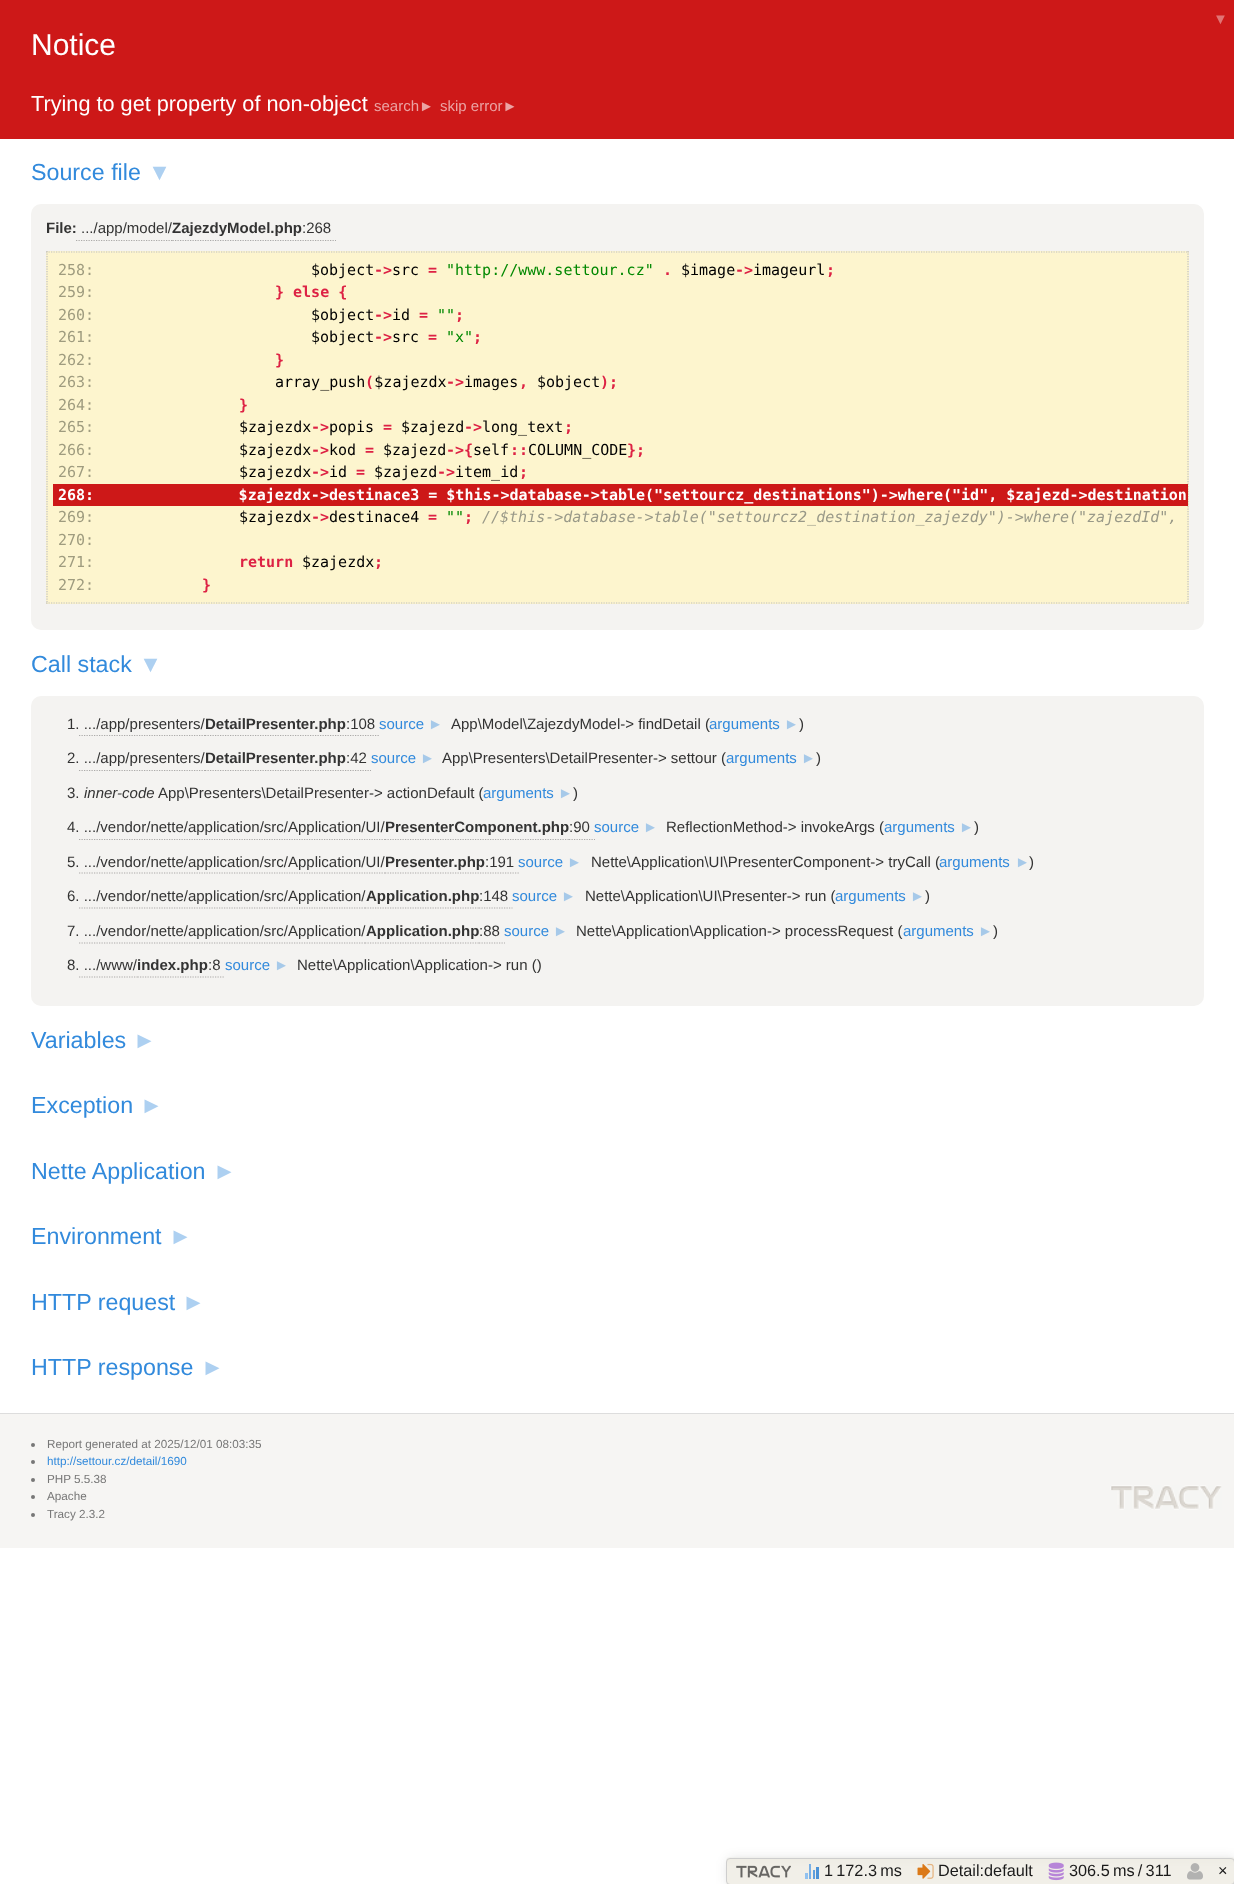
<svg xmlns="http://www.w3.org/2000/svg" width="1234" height="1884">
<style>
.a{font:15px Liberation Sans;fill:#e17474}
.b{font:30px Liberation Sans;fill:#fff}
.c{font:21.7px Liberation Sans;fill:#fff}
.d{font:15px Liberation Sans;fill:#eba3a3}
.e{font:23.25px Liberation Sans;fill:#328adc}
.f{font:23.25px Liberation Sans;fill:#add0f1}
.g{font:bold 15px Liberation Sans;fill:#333}
.h{font:15px Liberation Sans;fill:#333}
.i{font:15px DejaVu Sans Mono;fill:#9f9c7f}
.j{font:15px DejaVu Sans Mono;fill:#000}
.k{font:bold 15px DejaVu Sans Mono;fill:#d24}
.l{font:15px DejaVu Sans Mono;fill:#080}
.m{font:bold 15px DejaVu Sans Mono;fill:#fff}
.n{font:italic 15px DejaVu Sans Mono;fill:#998}
.o{font:15px Liberation Sans;fill:#328adc}
.p{font:15px Liberation Sans;fill:#a6c9e9}
.q{font:italic 15px Liberation Sans;fill:#333}
.r{font:11.7px Liberation Sans;fill:#777}
.s{font:11.7px Liberation Sans;fill:#328adc}
.t{font:16.25px Liberation Sans;fill:#1a1a1a}
</style>
<defs>
<clipPath id="clip1"><path d="M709 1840h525v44h-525zm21 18h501c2 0 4 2 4 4v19c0 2-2 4-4 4h-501c-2 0-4-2-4-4v-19c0-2 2-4 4-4z" clip-rule="evenodd"/></clipPath>
</defs>
<rect width="100%" height="100%" fill="#fff"/>
<path fill="#cd1818" d="M0 0h1234v139H0z"/>
<rect fill="#f4f3f1" x="31" y="204" width="1173" height="426" rx="10"/>
<path fill="none" stroke="#abaaa9" stroke-width="1.2" stroke-dasharray="1.25 1.25" d="M76 240.5h96.5"/>
<path fill="none" stroke="#0000004d" stroke-width="1.2" stroke-dasharray="1.25 1.25" d="M172.5 240.5h130"/>
<path fill="none" stroke="#abaaa9" stroke-width="1.2" stroke-dasharray="1.25 1.25" d="M302.5 240.5h33.5"/>
<path fill="#fdf5ce" d="M46 251h1143v353H46z"/>
<path fill="none" stroke="#c0c0c0" stroke-width="1.2" stroke-dasharray="1.25 1.25" d="M46 252h1143"/>
<path fill="none" stroke="#c0c0c0" stroke-width="1.2" stroke-dasharray="1.25 1.25" d="M1188 251v353"/>
<path fill="none" stroke="#c0c0c0" stroke-width="1.2" stroke-dasharray="1.25 1.25" d="M46 603h1143"/>
<path fill="none" stroke="#c0c0c0" stroke-width="1.2" stroke-dasharray="1.25 1.25" d="M47 251v353"/>
<path fill="#cd1818" d="M53 484h1135v22H53z"/>
<rect fill="#f4f3f1" x="31" y="696" width="1173" height="310" rx="10"/>
<path fill="none" stroke="#abaaa9" stroke-width="1.2" stroke-dasharray="1.25 1.25" d="M79 735.5h126"/>
<path fill="none" stroke="#abaaa9" stroke-width="1.2" stroke-dasharray="1.25 1.25" d="M205 735.5h140"/>
<path fill="none" stroke="#abaaa9" stroke-width="1.2" stroke-dasharray="1.25 1.25" d="M345 735.5h35"/>
<path fill="none" stroke="#abaaa9" stroke-width="1.2" stroke-dasharray="1.25 1.25" d="M79 770.5h126"/>
<path fill="none" stroke="#abaaa9" stroke-width="1.2" stroke-dasharray="1.25 1.25" d="M205 770.5h140"/>
<path fill="none" stroke="#abaaa9" stroke-width="1.2" stroke-dasharray="1.25 1.25" d="M345 770.5h26"/>
<path fill="none" stroke="#abaaa9" stroke-width="1.2" stroke-dasharray="1.25 1.25" d="M79 839.5h306"/>
<path fill="none" stroke="#abaaa9" stroke-width="1.2" stroke-dasharray="1.25 1.25" d="M385 839.5h184"/>
<path fill="none" stroke="#abaaa9" stroke-width="1.2" stroke-dasharray="1.25 1.25" d="M569 839.5h26"/>
<path fill="none" stroke="#abaaa9" stroke-width="1.2" stroke-dasharray="1.25 1.25" d="M79 873h306"/>
<path fill="none" stroke="#abaaa9" stroke-width="1.2" stroke-dasharray="1.25 1.25" d="M385 873h100"/>
<path fill="none" stroke="#abaaa9" stroke-width="1.2" stroke-dasharray="1.25 1.25" d="M485 873h34"/>
<path fill="none" stroke="#abaaa9" stroke-width="1.2" stroke-dasharray="1.25 1.25" d="M79 908h286"/>
<path fill="none" stroke="#abaaa9" stroke-width="1.2" stroke-dasharray="1.25 1.25" d="M365 908h114"/>
<path fill="none" stroke="#abaaa9" stroke-width="1.2" stroke-dasharray="1.25 1.25" d="M479 908h33.5"/>
<path fill="none" stroke="#abaaa9" stroke-width="1.2" stroke-dasharray="1.25 1.25" d="M79 943h286"/>
<path fill="none" stroke="#abaaa9" stroke-width="1.2" stroke-dasharray="1.25 1.25" d="M365 943h114"/>
<path fill="none" stroke="#abaaa9" stroke-width="1.2" stroke-dasharray="1.25 1.25" d="M479 943h26"/>
<path fill="none" stroke="#abaaa9" stroke-width="1.2" stroke-dasharray="1.25 1.25" d="M79 977h58.5"/>
<path fill="none" stroke="#abaaa9" stroke-width="1.2" stroke-dasharray="1.25 1.25" d="M137.5 977h70"/>
<path fill="none" stroke="#abaaa9" stroke-width="1.2" stroke-dasharray="1.25 1.25" d="M207.5 977h17.5"/>
<path fill="#f6f5f3" d="M0 1414h1234v134H0z"/>
<path fill="#ddd" d="M0 1413h1234v1H0z"/>
<circle fill="#777" cx="33" cy="1445" r="2"/>
<circle fill="#777" cx="33" cy="1462" r="2"/>
<circle fill="#777" cx="33" cy="1480" r="2"/>
<circle fill="#777" cx="33" cy="1497" r="2"/>
<circle fill="#777" cx="33" cy="1515" r="2"/>
<image href="1.png" x="1110" y="1485" width="112" height="25"/>
<g clip-path="url(#clip1)">
<rect fill="#1a1a1a26" filter="blur(6px)" x="728" y="1859" width="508" height="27" rx="4"/>
</g>
<image href="2.png" x="726" y="1857" width="508" height="27"/>
<rect fill="none" stroke="#cecece" x="726.5" y="1858.5" width="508" height="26" rx="3.5"/>
<image href="3.png" x="736" y="1865" width="55" height="13"/>
<image href="4.png" x="805" y="1864" width="14" height="15"/>
<image href="5.png" x="917" y="1863" width="17" height="16"/>
<image href="6.png" x="1048" y="1862" width="16" height="19"/>
<image href="7.png" x="1187" y="1863" width="16" height="17"/>
<text class="a" x="1213" y="24">▼</text>
<text class="b" x="31" y="55">Notice</text>
<text class="c" x="31" y="111">Trying to get property of non-object</text>
<text class="d" x="374" y="111">search►</text>
<text class="d" x="440" y="111">skip error►</text>
<text class="e" x="31" y="180">Source file</text>
<text class="f" x="148" y="180">▼</text>
<text class="g" x="46" y="233">File:</text>
<text class="h" x="81" y="233">.../app/model/</text>
<text class="g" x="172" y="233">ZajezdyModel.php</text>
<text class="h" x="302" y="233">:268</text>
<text class="i" x="58" y="275">258:</text>
<text class="j" x="311" y="275">$object</text>
<text class="k" x="374" y="275">-&gt;</text>
<text class="j" x="392" y="275">src</text>
<text class="k" x="428" y="275">=</text>
<text class="l" x="446" y="275">"http://www.settour.cz"</text>
<text class="k" x="663" y="275">.</text>
<text class="j" x="681" y="275">$image</text>
<text class="k" x="735" y="275">-&gt;</text>
<text class="j" x="753" y="275">imageurl</text>
<text class="k" x="826" y="275">;</text>
<text class="i" x="58" y="297">259:</text>
<text class="k" x="275" y="297">} else {</text>
<text class="i" x="58" y="320">260:</text>
<text class="j" x="311" y="320">$object</text>
<text class="k" x="374" y="320">-&gt;</text>
<text class="j" x="392" y="320">id</text>
<text class="k" x="419" y="320">=</text>
<text class="l" x="437" y="320">""</text>
<text class="k" x="455" y="320">;</text>
<text class="i" x="58" y="342">261:</text>
<text class="j" x="311" y="342">$object</text>
<text class="k" x="374" y="342">-&gt;</text>
<text class="j" x="392" y="342">src</text>
<text class="k" x="428" y="342">=</text>
<text class="l" x="446" y="342">"x"</text>
<text class="k" x="473" y="342">;</text>
<text class="i" x="58" y="365">262:</text>
<text class="k" x="275" y="365">}</text>
<text class="i" x="58" y="387">263:</text>
<text class="j" x="275" y="387">array_push $zajezdx</text>
<text class="k" x="365" y="387">(</text>
<text class="k" x="446" y="387">-&gt;</text>
<text class="j" x="464" y="387">images</text>
<text class="k" x="519" y="387">,</text>
<text class="j" x="537" y="387">$object</text>
<text class="k" x="600" y="387">);</text>
<text class="i" x="58" y="410">264:</text>
<text class="k" x="239" y="410">}</text>
<text class="i" x="58" y="432">265:</text>
<text class="j" x="239" y="432">$zajezdx</text>
<text class="k" x="311" y="432">-&gt;</text>
<text class="j" x="329" y="432">popis</text>
<text class="k" x="383" y="432">=</text>
<text class="j" x="401" y="432">$zajezd</text>
<text class="k" x="464" y="432">-&gt;</text>
<text class="j" x="482" y="432">long_text</text>
<text class="k" x="564" y="432">;</text>
<text class="i" x="58" y="455">266:</text>
<text class="j" x="239" y="455">$zajezdx</text>
<text class="k" x="311" y="455">-&gt;</text>
<text class="j" x="329" y="455">kod</text>
<text class="k" x="365" y="455">=</text>
<text class="j" x="383" y="455">$zajezd</text>
<text class="k" x="446" y="455">-&gt;{</text>
<text class="j" x="473" y="455">self</text>
<text class="k" x="510" y="455">::</text>
<text class="j" x="528" y="455">COLUMN_CODE</text>
<text class="k" x="627" y="455">};</text>
<text class="i" x="58" y="477">267:</text>
<text class="j" x="239" y="477">$zajezdx</text>
<text class="k" x="311" y="477">-&gt;</text>
<text class="j" x="329" y="477">id</text>
<text class="j" x="374" y="477">$zajezd</text>
<text class="k" x="437" y="477">-&gt;</text>
<text class="j" x="455" y="477">item_id</text>
<text class="k" x="519" y="477">;</text>
<text class="m" xml:space="preserve" x="58" y="500">268:                $zajezdx-&gt;destinace3 = $this-&gt;database-&gt;table("settourcz_destinations")-&gt;where("id", $zajezd-&gt;destination</text>
<text class="k" x="356" y="477">=</text>
<text class="i" x="58" y="522">269:</text>
<text class="j" x="239" y="522">$zajezdx</text>
<text class="k" x="311" y="522">-&gt;</text>
<text class="j" x="329" y="522">destinace4</text>
<text class="k" x="428" y="522">=</text>
<text class="l" x="446" y="522">""</text>
<text class="k" x="464" y="522">;</text>
<text class="n" x="482" y="522">//$this-&gt;database-&gt;table("settourcz2_destination_zajezdy")-&gt;where("zajezdId",</text>
<text class="i" x="58" y="545">270:</text>
<text class="i" x="58" y="567">271:</text>
<text class="k" x="239" y="567">return</text>
<text class="j" x="302" y="567">$zajezdx</text>
<text class="k" x="374" y="567">;</text>
<text class="i" x="58" y="590">272:</text>
<text class="k" x="202" y="590">}</text>
<text class="e" x="31" y="672">Call stack</text>
<text class="f" x="139" y="672">▼</text>
<text class="h" x="67" y="729">1. .../app/presenters/</text>
<text class="g" x="205" y="729">DetailPresenter.php</text>
<text class="h" x="346" y="729">:108</text>
<text class="o" x="379" y="729">source</text>
<text class="p" x="428" y="729">►</text>
<text class="h" x="451" y="729">App\Model\ZajezdyModel-&gt; findDetail (</text>
<text class="o" x="709" y="729">arguments</text>
<text class="p" x="784" y="729">►</text>
<text class="h" x="799" y="729">)</text>
<text class="h" x="67" y="763">2. .../app/presenters/</text>
<text class="g" x="205" y="763">DetailPresenter.php</text>
<text class="h" x="346" y="763">:42</text>
<text class="o" x="371" y="763">source</text>
<text class="p" x="420" y="763">►</text>
<text class="h" x="442" y="763">App\Presenters\DetailPresenter-&gt; settour (</text>
<text class="o" x="726" y="763">arguments</text>
<text class="p" x="801" y="763">►</text>
<text class="h" x="816" y="763">)</text>
<text class="h" x="67" y="798">3.</text>
<text class="q" x="84" y="798">inner-code</text>
<text class="h" x="158" y="798">App\Presenters\DetailPresenter-&gt; actionDefault (</text>
<text class="o" x="483" y="798">arguments</text>
<text class="p" x="558" y="798">►</text>
<text class="h" x="573" y="798">)</text>
<text class="h" x="67" y="832">4. .../vendor/nette/application/src/Application/UI/</text>
<text class="g" x="385" y="832">PresenterComponent.php</text>
<text class="h" x="569" y="832">:90</text>
<text class="o" x="594" y="832">source</text>
<text class="p" x="643" y="832">►</text>
<text class="h" x="666" y="832">ReflectionMethod-&gt; invokeArgs (</text>
<text class="o" x="884" y="832">arguments</text>
<text class="p" x="959" y="832">►</text>
<text class="h" x="974" y="832">)</text>
<text class="h" x="67" y="867">5. .../vendor/nette/application/src/Application/UI/</text>
<text class="g" x="385" y="867">Presenter.php</text>
<text class="h" x="485" y="867">:191</text>
<text class="o" x="518" y="867">source</text>
<text class="p" x="567" y="867">►</text>
<text class="h" x="591" y="867">Nette\Application\UI\PresenterComponent-&gt; tryCall (</text>
<text class="o" x="939" y="867">arguments</text>
<text class="p" x="1015" y="867">►</text>
<text class="h" x="1029" y="867">)</text>
<text class="h" x="67" y="901">6. .../vendor/nette/application/src/Application/</text>
<text class="g" x="366" y="901">Application.php</text>
<text class="h" x="479" y="901">:148</text>
<text class="o" x="512" y="901">source</text>
<text class="p" x="561" y="901">►</text>
<text class="h" x="585" y="901">Nette\Application\UI\Presenter-&gt; run (</text>
<text class="o" x="835" y="901">arguments</text>
<text class="p" x="910" y="901">►</text>
<text class="h" x="925" y="901">)</text>
<text class="h" x="67" y="936">7. .../vendor/nette/application/src/Application/</text>
<text class="g" x="366" y="936">Application.php</text>
<text class="h" x="479" y="936">:88</text>
<text class="o" x="504" y="936">source</text>
<text class="p" x="553" y="936">►</text>
<text class="h" x="576" y="936">Nette\Application\Application-&gt; processRequest (</text>
<text class="o" x="903" y="936">arguments</text>
<text class="p" x="978" y="936">►</text>
<text class="h" x="993" y="936">)</text>
<text class="h" x="67" y="970">8. .../www/</text>
<text class="g" x="137" y="970">index.php</text>
<text class="h" x="208" y="970">:8</text>
<text class="o" x="225" y="970">source</text>
<text class="p" x="274" y="970">►</text>
<text class="h" x="297" y="970">Nette\Application\Application-&gt; run ()</text>
<text class="e" x="31" y="1048">Variables</text>
<text class="f" x="133" y="1048">►</text>
<text class="e" x="31" y="1113">Exception</text>
<text class="f" x="140" y="1113">►</text>
<text class="e" x="31" y="1179">Nette Application</text>
<text class="f" x="213" y="1179">►</text>
<text class="e" x="31" y="1244">Environment</text>
<text class="f" x="169" y="1244">►</text>
<text class="e" x="31" y="1310">HTTP request</text>
<text class="f" x="182" y="1310">►</text>
<text class="e" x="31" y="1375">HTTP response</text>
<text class="f" x="201" y="1375">►</text>
<text class="r" x="47" y="1448">Report generated at 2025/12/01 08:03:35</text>
<text class="s" x="47" y="1465">http://settour.cz/detail/1690</text>
<text class="r" x="47" y="1483">PHP 5.5.38</text>
<text class="r" x="47" y="1500">Apache</text>
<text class="r" x="47" y="1518">Tracy 2.3.2</text>
<text class="t" x="824" y="1876">1 172.3 ms</text>
<text class="t" x="938" y="1876">Detail:default</text>
<text class="t" x="1069" y="1876">306.5 ms / 311</text>
<text class="t" x="1218" y="1876">×</text>
</svg>
